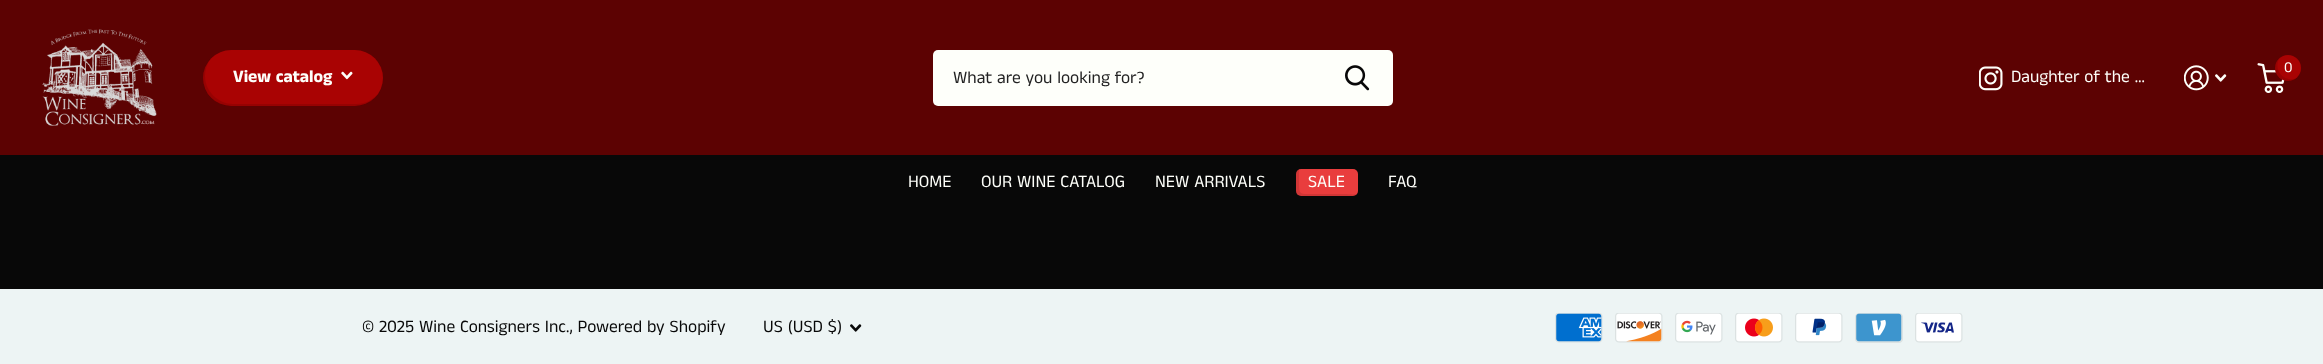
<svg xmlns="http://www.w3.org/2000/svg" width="2323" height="364">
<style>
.a{font:bold 17.5px Anek Tamil;fill:#fefffa}
.b{font:17.5px Anek Tamil;fill:#222}
.c{font:17.5px Anek Tamil;fill:#fefffa}
.d{font:15px Anek Tamil;fill:#fefffa}
.e{font:17.5px Anek Tamil;fill:#080808}
</style>
<rect width="100%" height="100%" fill="#080808"/>
<path fill="#5c0202" d="M0 0h2323v155H0z"/>
<image href="1.png" x="42" y="29" width="115" height="97"/>
<rect fill="#a90303" x="203" y="50" width="180" height="56" rx="28"/>
<path fill="#0000001a" d="M212 57c-6 6-9 13-9 21c0 15 13 28 28 28h124c9 0 17-4 22-11c-5 5-12 9-20 9h-124c-15 0-28-13-28-28c0-7 3-14 7-19z"/>
<image href="2.png" x="341" y="71" width="12" height="9"/>
<rect fill="#fefffa" x="933" y="50" width="460" height="56" rx="5"/>
<image href="3.png" x="1345" y="65" width="25" height="26"/>
<image href="4.png" x="1979" y="66" width="24" height="25"/>
<image href="5.png" x="2184" y="65" width="25" height="26"/>
<image href="6.png" x="2215" y="74" width="12" height="8"/>
<image href="7.png" x="2257" y="63" width="28" height="30"/>
<circle fill="#a90303" cx="2288" cy="68" r="13"/>
<path fill="#0000001a" d="M2296.5 78c-12 5.5-24-8-17-20c-13 11.5 4 31 17 20z"/>
<rect fill="#e93d3d" x="1296" y="169" width="62" height="27" rx="5"/>
<path fill="#0000001a" d="M1299 169c-2 1-3 3-3 5v17c0 3 2 5 5 5h52c2 0 3-1 4-2c-3 1-10 0-11 0h-34c-12 0-13 1-13-11z"/>
<path fill="#edf4f4" d="M0 289h2323v75H0z"/>
<image href="8.png" x="850" y="324" width="12" height="8"/>
<image href="9.png" x="1555" y="313" width="48" height="30"/>
<image href="10.png" x="1615" y="313" width="48" height="30"/>
<image href="11.png" x="1675" y="313" width="48" height="30"/>
<image href="12.png" x="1735" y="313" width="48" height="30"/>
<image href="13.png" x="1795" y="313" width="48" height="30"/>
<image href="14.png" x="1855" y="313" width="48" height="30"/>
<image href="15.png" x="1915" y="313" width="48" height="30"/>
<text class="a" x="233" y="82">View catalog</text>
<text class="b" x="953" y="83">What are you looking for?</text>
<text class="c" x="2011" y="82">Daughter of the …</text>
<text class="d" x="2284" y="72">0</text>
<text class="c" x="908" y="187">HOME</text>
<text class="c" x="981" y="187">OUR WINE CATALOG</text>
<text class="c" x="1155" y="187">NEW ARRIVALS</text>
<text class="c" x="1308" y="187">SALE</text>
<text class="c" x="1388" y="187">FAQ</text>
<text class="e" x="362" y="332">© 2025 Wine Consigners Inc., Powered by Shopify</text>
<text class="e" x="763" y="332">US (USD $)</text>
</svg>
